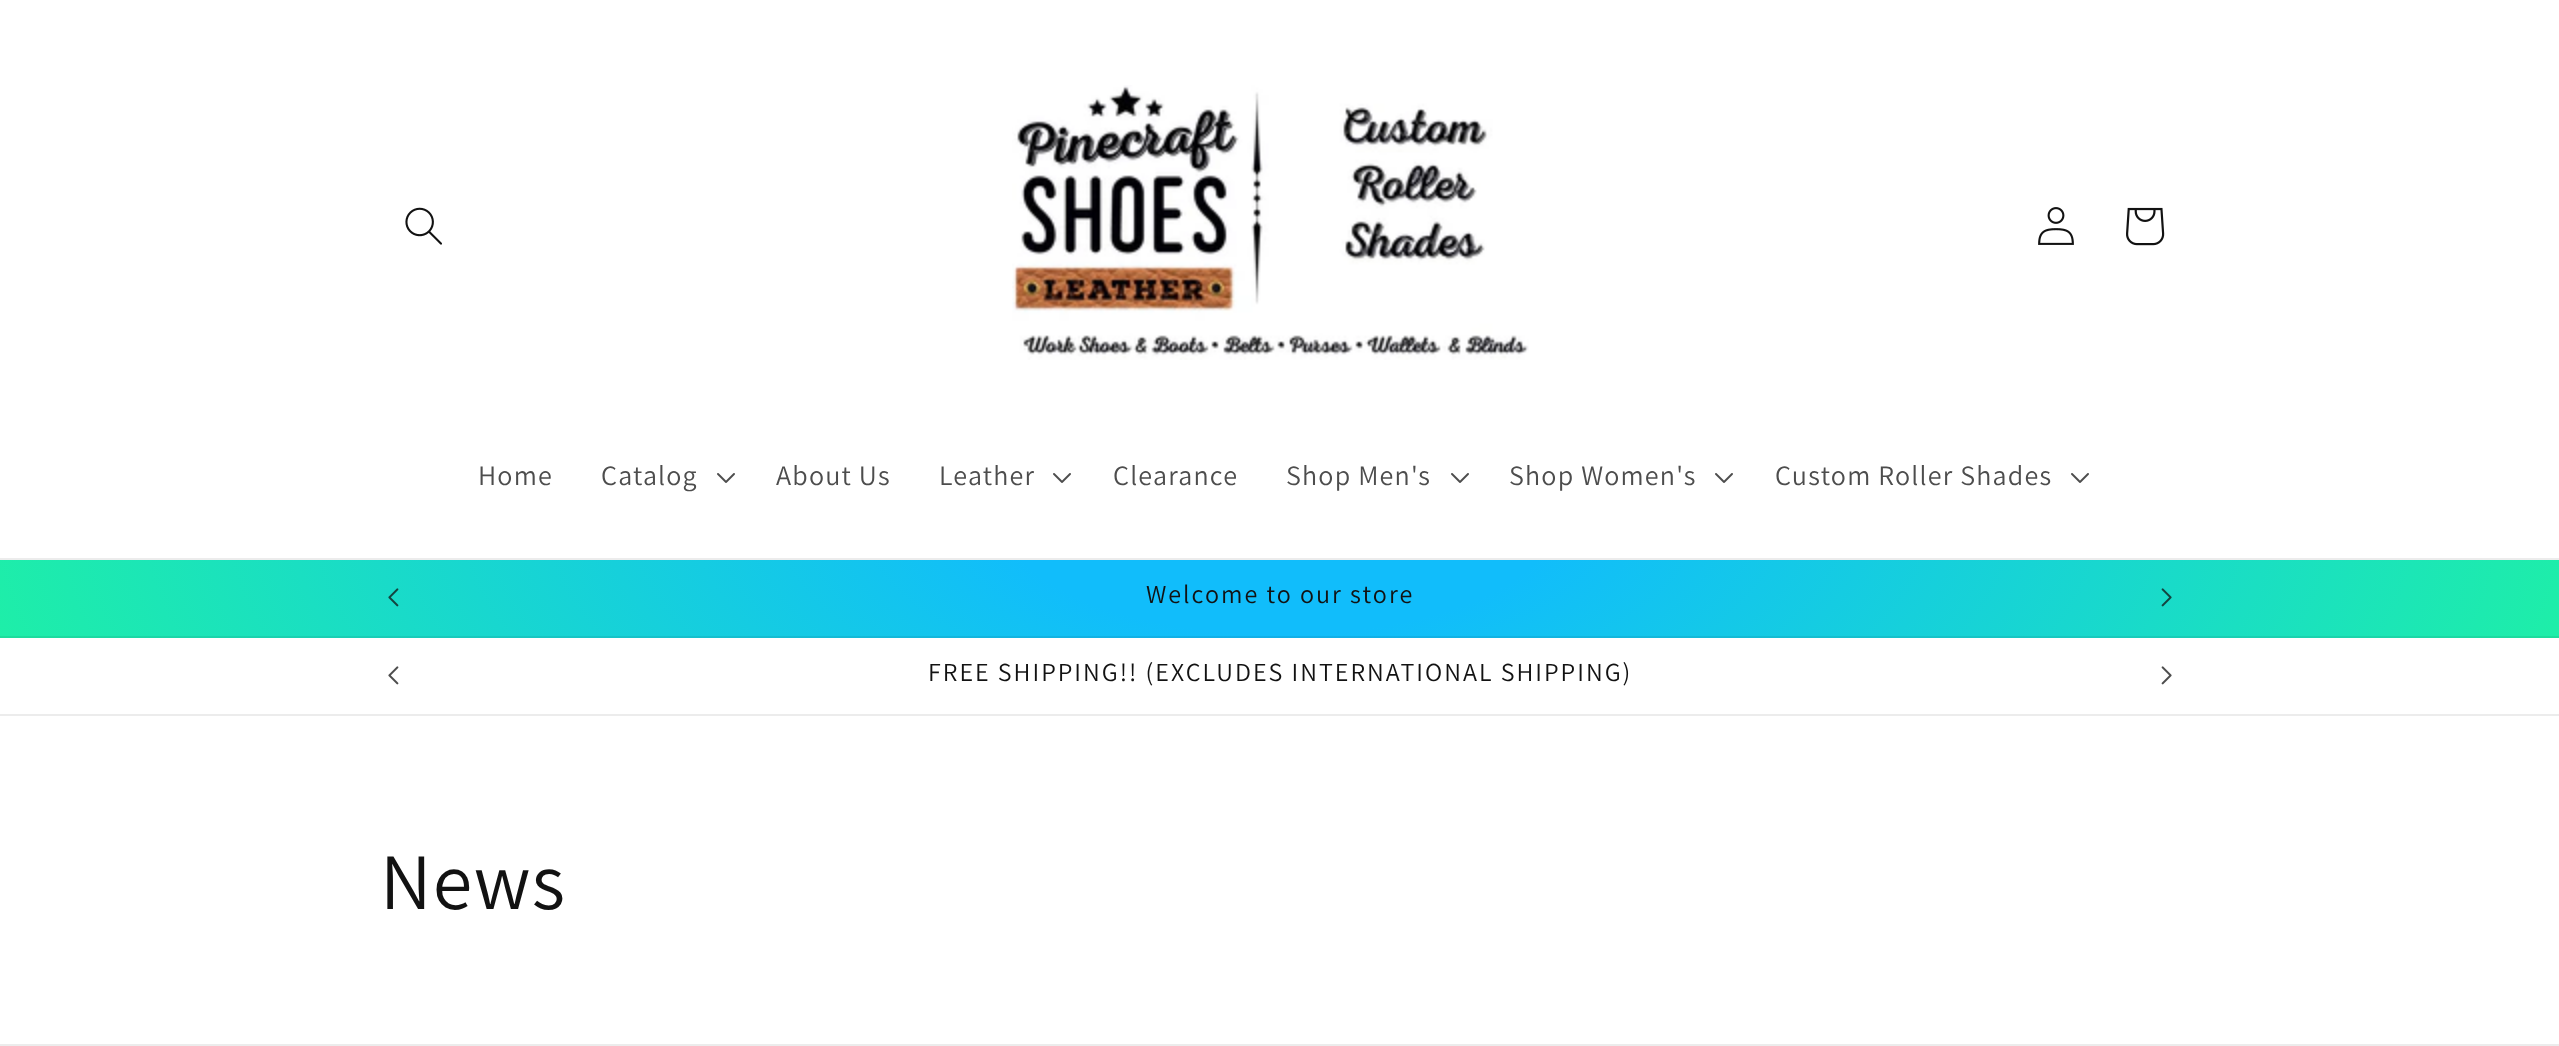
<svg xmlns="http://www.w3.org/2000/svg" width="2559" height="1046">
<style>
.a{font:28px Assistant;letter-spacing:1.2px;fill:#4d4d4d}
.b{font:26px Assistant;letter-spacing:2px;fill:#121212}
.c{font:80px Assistant;letter-spacing:1.2px;fill:#121212}
</style>
<defs>
<radialGradient id="g1" gradientUnits="userSpaceOnUse" cx="0" cy="0" r="1" gradientTransform="matrix(1810 0 0 740 1280 523)"><stop offset="0.15" stop-color="#11bdfb"/><stop offset="0.85" stop-color="#21f996"/><stop offset="0.94" stop-color="#06986d"/></radialGradient>
<radialGradient id="g2" gradientUnits="userSpaceOnUse" cx="0" cy="0" r="1" gradientTransform="matrix(1810 0 0 740 1280 523)"><stop offset="0.15" stop-color="#11afe8"/><stop offset="0.85" stop-color="#20e78b"/><stop offset="0.94" stop-color="#078d66"/></radialGradient>
</defs>
<rect width="100%" height="100%" fill="#fff"/>
<path fill="#ececec" d="M0 558h2559v2H0z"/>
<image href="1.png" x="405" y="207" width="37" height="38"/>
<image href="2.png" x="1012" y="85" width="517" height="275"/>
<image href="3.png" x="2038" y="207" width="36" height="38"/>
<image href="4.png" x="2126" y="207" width="39" height="39"/>
<image href="5.png" x="717" y="473" width="18" height="10"/>
<image href="5.png" x="1053" y="473" width="18" height="10"/>
<image href="5.png" x="1451" y="473" width="18" height="10"/>
<image href="5.png" x="1715" y="473" width="18" height="10"/>
<image href="5.png" x="2071" y="473" width="18" height="10"/>
<path fill="url(#g1)" d="M0 560h2559v76H0z"/>
<path fill="url(#g2)" d="M0 636h2559v2H0z"/>
<image href="6.png" x="388" y="588" width="11" height="19"/>
<image href="7.png" x="2161" y="588" width="11" height="19"/>
<path fill="#ececec" d="M0 714h2559v2H0z"/>
<image href="8.png" x="388" y="666" width="11" height="19"/>
<image href="9.png" x="2161" y="666" width="11" height="19"/>
<path fill="#ececec" d="M0 1044h2559v2H0z"/>
<text class="a" x="478" y="485">Home</text>
<text class="a" x="601" y="485">Catalog</text>
<text class="a" x="776" y="485">About Us</text>
<text class="a" x="939" y="485">Leather</text>
<text class="a" x="1113" y="485">Clearance</text>
<text class="a" x="1286" y="485">Shop Men's</text>
<text class="a" x="1509" y="485">Shop Women's</text>
<text class="a" x="1775" y="485">Custom Roller Shades</text>
<text class="b" x="1146" y="603">Welcome to our store</text>
<text class="b" x="928" y="681">FREE SHIPPING!! (EXCLUDES INTERNATIONAL SHIPPING)</text>
<text class="c" x="380" y="909">News</text>
</svg>
